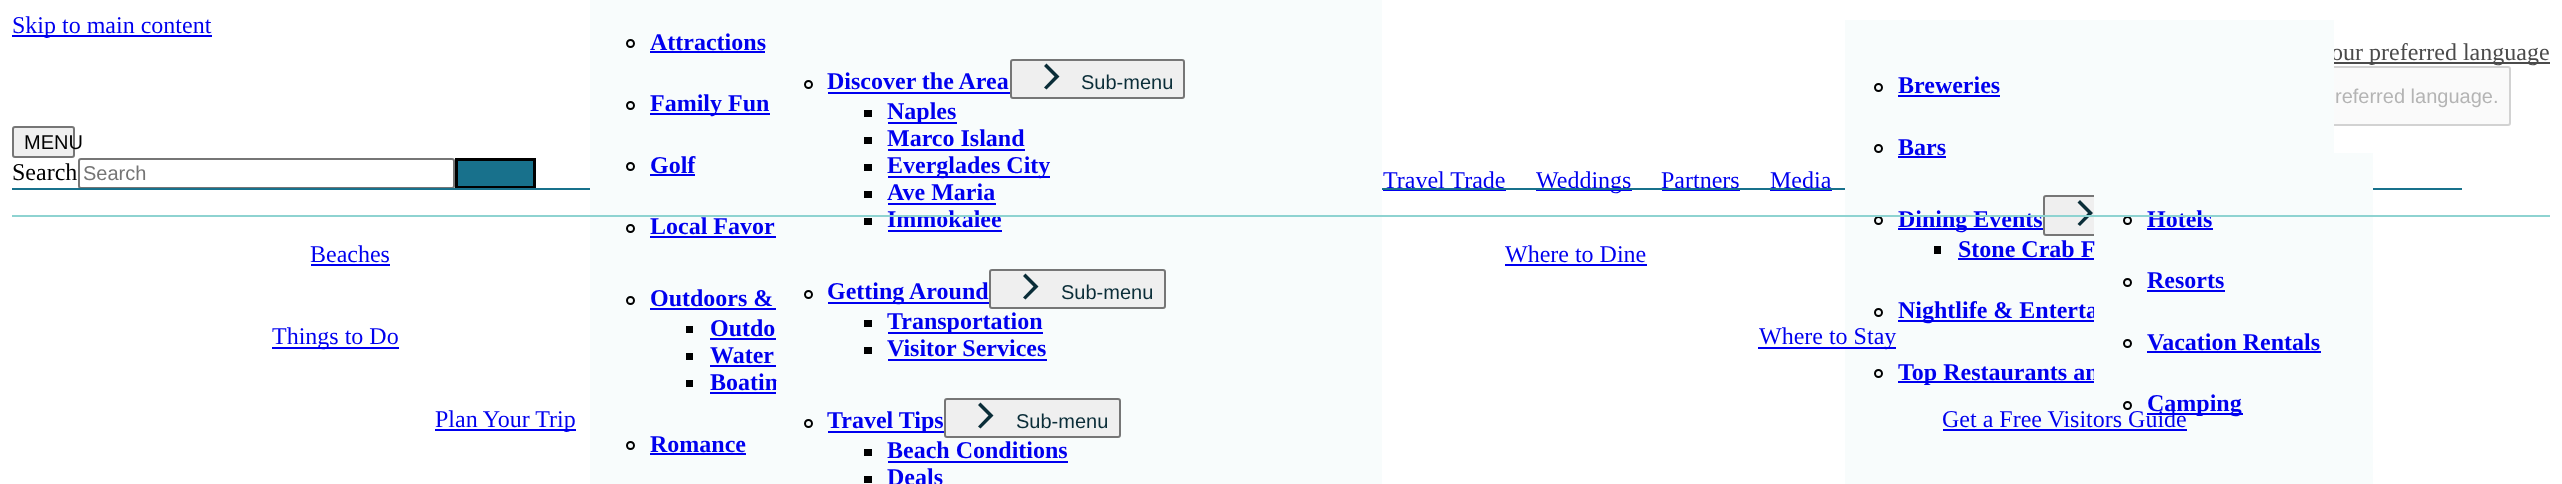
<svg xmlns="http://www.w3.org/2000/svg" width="2562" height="484">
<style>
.a{font:24px Liberation Serif;fill:#00e}
.b{font:20px Liberation Sans;fill:#000}
.c{font:24px Liberation Serif;fill:#000}
.d{font:20px Liberation Sans;fill:#757575}
.e{font:24px Liberation Serif;fill:#4b4b4b}
.f{font:20px Liberation Sans;fill:#b4b4b4}
.g{font:bold 24px Liberation Serif;fill:#00e}
.h{font:20px Liberation Sans;fill:#0a2d38}
</style>
<rect width="100%" height="100%" fill="#fff"/>
<path fill="#00e" d="M12 35h200v2H12z"/>
<path fill="#00e" d="M272 347h127v2H272z"/>
<path fill="#00e" d="M435 429h141v2H435z"/>
<path fill="#00e" d="M1505 264h142v2H1505z"/>
<path fill="#00e" d="M311 264h79v2H311z"/>
<rect fill="#efefef" stroke="#767676" stroke-width="2" x="13" y="127" width="61" height="30" rx="2"/>
<rect fill="none" stroke="#767676" stroke-width="2" x="79" y="159" width="375" height="29" rx="2"/>
<path fill="#18718c" stroke="#000" stroke-width="3" d="M456.5 159.5h78v28H456.5z"/>
<path fill="#4b4b4b" d="M2334 62h216v2H2334z"/>
<rect fill="#fafafa" stroke="#d2d2d2" stroke-width="2" x="2110" y="67" width="400" height="58" rx="2"/>
<path fill="#00e" d="M1383 190h123v1H1383z"/>
<path fill="#00e" d="M1536 190h96v1H1536z"/>
<path fill="#00e" d="M1662 190h78v1H1662z"/>
<path fill="#00e" d="M1770 190h62v1H1770z"/>
<text class="a" x="12" y="33">Skip to main content</text>
<text class="a" x="272" y="344">Things to Do</text>
<text class="a" x="435" y="427">Plan Your Trip</text>
<text class="a" x="1505" y="262">Where to Dine</text>
<text class="a" x="310" y="262">Beaches</text>
<text class="b" x="24" y="149">MENU</text>
<text class="c" x="12" y="180">Search</text>
<text class="d" x="83" y="180">Search</text>
<text class="e" x="2331" y="60">our preferred language</text>
<text class="f" x="2335" y="103">referred language.</text>
<text class="a" x="1383" y="188">Travel Trade</text>
<text class="a" x="1536" y="188">Weddings</text>
<text class="a" x="1661" y="188">Partners</text>
<text class="a" x="1770" y="188">Media</text>
<path fill="#18718c" d="M12 188h2450v2H12z"/>
<path fill="#f8fcfc" d="M590 0h792v484H590z"/>
<text class="g" x="887" y="227">Immokalee</text>
<path fill="#f8fcfc" d="M1845 20h489v464H1845z"/>
<path fill="#00e" d="M1898 381h196v2H1898z"/>
<text class="g" x="1898" y="380">Top Restaurants an</text>
<path fill="#00e" d="M1898 320h196v2H1898z"/>
<text class="g" x="1898" y="318">Nightlife &amp; Enterta</text>
<rect fill="#efefef" stroke="#767676" stroke-width="2" x="2044" y="196" width="174" height="39" rx="2"/>
<path fill="#f8fcfc" d="M2094 153h279v331H2094z"/>
<text class="g" x="2147" y="227">Hotels</text>
<circle fill="none" stroke="#000" stroke-width="2" cx="2127.5" cy="220.5" r="3.5"/>
<path fill="#0a2d38" d="M2080 226l-2.5-2l10.5-11l-10.5-10.5l2.5-2.5l13 13z"/>
<path fill="#00e" d="M1898 228h145v2H1898z"/>
<text class="g" x="1898" y="227">Dining Events</text>
<circle fill="none" stroke="#000" stroke-width="2" cx="1878.5" cy="220.5" r="3.5"/>
<path fill="#8ed3d1" d="M12 215h2538v2H12z"/>
<path fill="#00e" d="M2147 413h96v2H2147z"/>
<text class="a" x="1942" y="427">Get a Free Visitors Guide</text>
<path fill="#00e" d="M1943 429h244v2H1943z"/>
<text class="g" x="887" y="485">Deals</text>
<path fill="#000" d="M864 476h8v7H864z"/>
<text class="g" x="887" y="458">Beach Conditions</text>
<path fill="#00e" d="M888 461h180v2H888z"/>
<path fill="#000" d="M864 449h8v7H864z"/>
<rect fill="#efefef" stroke="#767676" stroke-width="2" x="945" y="399" width="175" height="38" rx="2"/>
<text class="h" x="1016" y="428">Sub-menu</text>
<path fill="#0a2d38" d="M980.5 428.5l-2.5-2l10.5-11l-10.5-10.5l2.5-2.5l13 13z"/>
<path fill="#00e" d="M828 431h116v2H828z"/>
<text class="g" x="827" y="428">Travel Tips</text>
<circle fill="none" stroke="#000" stroke-width="2" cx="808.5" cy="423.5" r="3.5"/>
<text class="g" x="887" y="356">Visitor Services</text>
<path fill="#00e" d="M888 359h159v2H888z"/>
<path fill="#000" d="M864 347h8v7H864z"/>
<path fill="#00e" d="M888 332h155v2H888z"/>
<text class="g" x="887" y="329">Transportation</text>
<path fill="#000" d="M864 320h8v7H864z"/>
<rect fill="#efefef" stroke="#767676" stroke-width="2" x="990" y="270" width="175" height="38" rx="2"/>
<text class="h" x="1061" y="299">Sub-menu</text>
<path fill="#0a2d38" d="M1025.5 299.5l-2.5-2l10.5-11l-10.5-10.5l2.5-2.5l13 13z"/>
<path fill="#00e" d="M828 302h161v2H828z"/>
<text class="g" x="827" y="299">Getting Around</text>
<circle fill="none" stroke="#000" stroke-width="2" cx="808.5" cy="294.5" r="3.5"/>
<path fill="#00e" d="M888 230h114v2H888z"/>
<path fill="#000" d="M864 218h8v7H864z"/>
<text class="g" x="887" y="200">Ave Maria</text>
<path fill="#00e" d="M888 203h108v2H888z"/>
<path fill="#000" d="M864 191h8v7H864z"/>
<path fill="#00e" d="M888 176h162v2H888z"/>
<text class="g" x="887" y="173">Everglades City</text>
<path fill="#000" d="M864 164h8v7H864z"/>
<text class="g" x="887" y="146">Marco Island</text>
<path fill="#00e" d="M888 149h137v2H888z"/>
<path fill="#000" d="M864 137h8v7H864z"/>
<path fill="#00e" d="M888 122h69v2H888z"/>
<text class="g" x="887" y="119">Naples</text>
<path fill="#000" d="M864 110h8v7H864z"/>
<rect fill="#efefef" stroke="#767676" stroke-width="2" x="1011" y="60" width="173" height="38" rx="2"/>
<text class="h" x="1081" y="89">Sub-menu</text>
<path fill="#0a2d38" d="M1046.5 89.5l-2.5-2l10.5-11l-10.5-10.5l2.5-2.5l13 13z"/>
<text class="g" x="827" y="89">Discover the Area</text>
<path fill="#00e" d="M828 92h182v2H828z"/>
<circle fill="none" stroke="#000" stroke-width="2" cx="808.5" cy="84.5" r="3.5"/>
<text class="g" x="710" y="390">Boatin</text>
<path fill="#f8fcfc" d="M776 381h2v9H776z"/>
<text class="g" x="2147" y="411">Camping</text>
<circle fill="none" stroke="#000" stroke-width="2" cx="2127.5" cy="405.5" r="3.5"/>
<text class="g" x="2147" y="350">Vacation Rentals</text>
<path fill="#00e" d="M2147 351h174v2H2147z"/>
<circle fill="none" stroke="#000" stroke-width="2" cx="2127.5" cy="343.5" r="3.5"/>
<text class="g" x="2147" y="288">Resorts</text>
<path fill="#00e" d="M2147 290h78v2H2147z"/>
<circle fill="none" stroke="#000" stroke-width="2" cx="2127.5" cy="282.5" r="3.5"/>
<path fill="#00e" d="M2147 228h66v2H2147z"/>
<path fill="#00e" d="M1758 347h138v2H1758z"/>
<text class="a" x="1759" y="344">Where to Stay</text>
<text class="g" x="650" y="452">Romance</text>
<path fill="#00e" d="M650 453h96v2H650z"/>
<circle fill="none" stroke="#000" stroke-width="2" cx="630.5" cy="445.5" r="3.5"/>
<path fill="#00e" d="M710 392h66v2H710z"/>
<path fill="#000" d="M686 380h7v7H686z"/>
<text class="g" x="710" y="363">Water</text>
<path fill="#00e" d="M710 365h66v2H710z"/>
<path fill="#000" d="M686 353h7v7H686z"/>
<text class="g" x="710" y="336">Outdo</text>
<path fill="#00e" d="M710 338h66v2H710z"/>
<path fill="#000" d="M686 326h7v7H686z"/>
<text class="g" x="650" y="306">Outdoors &amp;</text>
<path fill="#00e" d="M650 308h126v2H650z"/>
<circle fill="none" stroke="#000" stroke-width="2" cx="630.5" cy="300.5" r="3.5"/>
<text class="g" x="650" y="234">Local Favor</text>
<path fill="#00e" d="M650 236h126v2H650z"/>
<circle fill="none" stroke="#000" stroke-width="2" cx="630.5" cy="228.5" r="3.5"/>
<text class="g" x="650" y="173">Golf</text>
<path fill="#00e" d="M650 174h45v2H650z"/>
<circle fill="none" stroke="#000" stroke-width="2" cx="630.5" cy="166.5" r="3.5"/>
<path fill="#00e" d="M650 113h120v2H650z"/>
<text class="g" x="650" y="111">Family Fun</text>
<circle fill="none" stroke="#000" stroke-width="2" cx="630.5" cy="105.5" r="3.5"/>
<text class="g" x="650" y="50">Attractions</text>
<path fill="#00e" d="M650 51h115v2H650z"/>
<circle fill="none" stroke="#000" stroke-width="2" cx="630.5" cy="43.5" r="3.5"/>
<circle fill="none" stroke="#000" stroke-width="2" cx="1878.5" cy="373.5" r="3.5"/>
<circle fill="none" stroke="#000" stroke-width="2" cx="1878.5" cy="312.5" r="3.5"/>
<text class="g" x="1958" y="257">Stone Crab F</text>
<path fill="#00e" d="M1958 258h136v2H1958z"/>
<path fill="#000" d="M1934 246h7v8H1934z"/>
<text class="g" x="1898" y="155">Bars</text>
<path fill="#00e" d="M1898 156h48v2H1898z"/>
<circle fill="none" stroke="#000" stroke-width="2" cx="1878.5" cy="148.5" r="3.5"/>
<text class="g" x="1898" y="93">Breweries</text>
<path fill="#00e" d="M1898 95h102v2H1898z"/>
<circle fill="none" stroke="#000" stroke-width="2" cx="1878.5" cy="87.5" r="3.5"/>
</svg>
